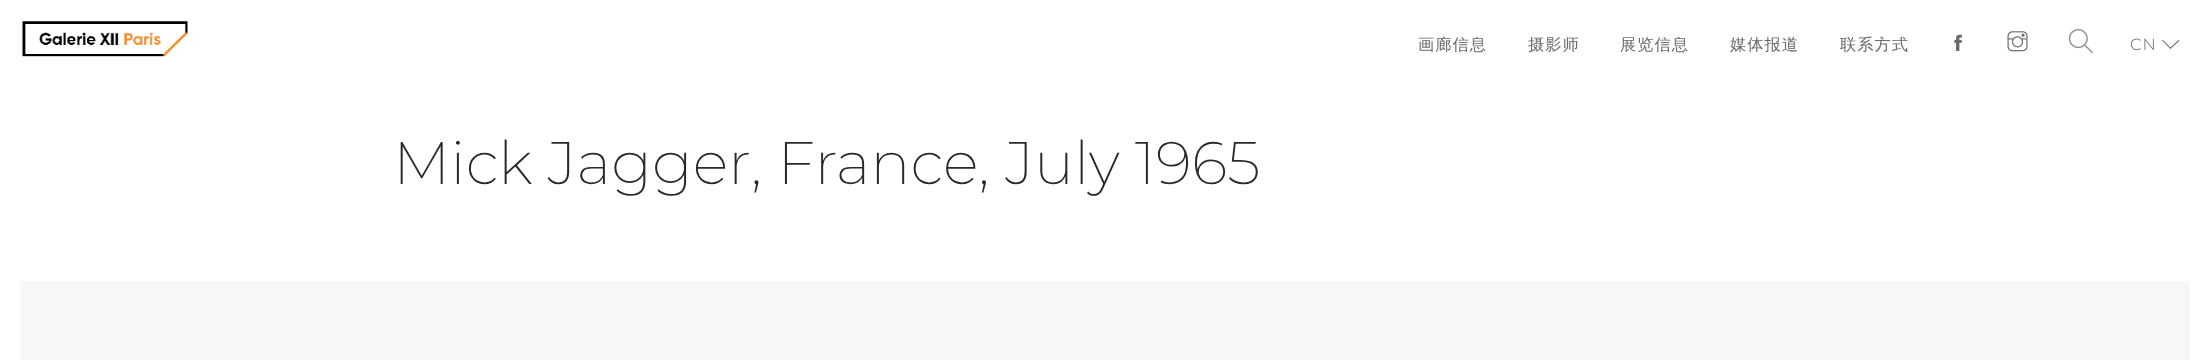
<svg xmlns="http://www.w3.org/2000/svg" width="2210" height="360">
<style>
.a{font:500 16.25px WenQuanYi Zen Hei;letter-spacing:1px;fill:#696969}
.b{font:300 16.25px Montserrat;letter-spacing:1px;fill:#696969}
.c{font:200 60px Montserrat;fill:#292929}
</style>
<rect width="100%" height="100%" fill="#fff"/>
<image href="1.png" x="22" y="21" width="166" height="36"/>
<image href="2.png" x="1954" y="34" width="8" height="17"/>
<image href="3.png" x="2007" y="31" width="21" height="21"/>
<image href="4.png" x="2068" y="29" width="25" height="25"/>
<path fill="#666" d="M2179.5 40.5l-9 8.5l-8.5-8.5l1-.5l7.5 7.5l8-7.5z"/>
<path fill="#f9f7f5" d="M20 281h2170v79H20z"/>
<text class="a" x="1418" y="50">画廊信息</text>
<text class="a" x="1528" y="50">摄影师</text>
<text class="a" x="1620" y="50">展览信息</text>
<text class="a" x="1730" y="50">媒体报道</text>
<text class="a" x="1840" y="50">联系方式</text>
<text class="b" x="2130" y="50">CN</text>
<text class="c" x="393" y="184">Mick Jagger, France, July 1965</text>
</svg>
